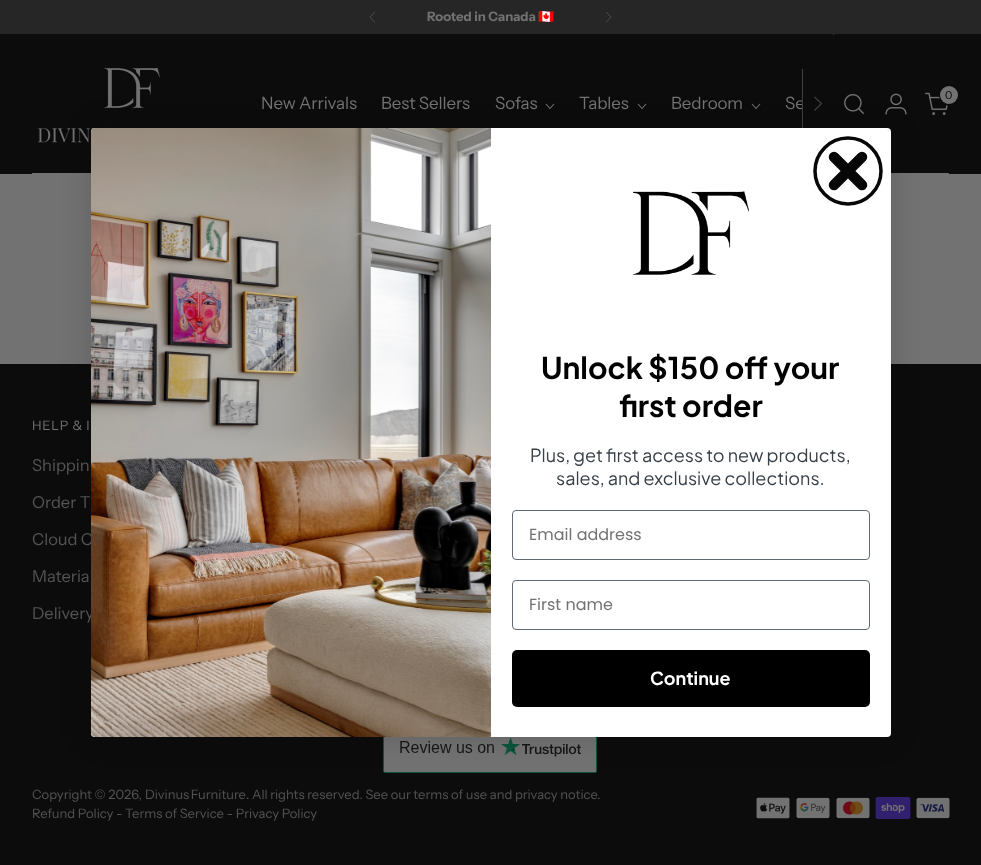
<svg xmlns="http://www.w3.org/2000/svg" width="981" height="865">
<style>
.a{font:bold 13px Instrument Sans;fill:#727272}
.b{font:bold 13px Noto Color Emoji;fill:#727272}
.c{font:11px Instrument Sans;fill:#0c0c0c}
.d{font:17px Instrument Sans;letter-spacing:-0.1px;fill:#727272}
.e{font:13px Instrument Sans;letter-spacing:0.75px;fill:#727272}
.f{font:16.5px Instrument Sans;fill:#545454}
.g{font:13px Instrument Sans;fill:#545454}
.h{font:bold 30px Plus Jakarta Sans;fill:#000}
.i{font:18px Plus Jakarta Sans;fill:#373f47}
.j{font:16px Poppins;fill:#727272}
.k{font:bold 18px Plus Jakarta Sans;fill:#fff}
</style>
<defs>
<clipPath id="clip1"><path d="M260 34h542v140H260z"/></clipPath>
</defs>
<rect width="100%" height="100%" fill="#727272"/>
<path fill="#262626" d="M0 0h981v34H0z"/>
<path fill="none" stroke="#4c4c4c" d="M375 12l-5 5l5 5.5"/>
<path fill="none" stroke="#4c4c4c" d="M606 22.5l5-5.5l-5-5"/>
<path fill="#0c0c0c" d="M0 34h981v140H0z"/>
<path fill="#727272" d="M32 173h917v1H32z"/>
<path fill="#3f3f3f" d="M833 34h1v1H833z"/>
<image href="1.png" x="37" y="67" width="124" height="76"/>
<image href="2.png" x="844" y="94" width="21" height="21"/>
<image href="3.png" x="885" y="93" width="22" height="22"/>
<image href="4.png" x="925" y="92" width="24" height="23"/>
<circle fill="none" stroke="#0c0c0c" stroke-width="2" cx="949.5" cy="95.5" r="9.5"/>
<circle fill="#727272" cx="949" cy="95" r="9"/>
<path fill="none" stroke="#727272" stroke-width="1.1" d="M546 104l4 4.5l4-4.5"/>
<path fill="none" stroke="#727272" stroke-width="1.1" d="M638 104l4 4.5l4-4.5"/>
<path fill="none" stroke="#727272" stroke-width="1.1" d="M752 104l4 4.5l4-4.5"/>
<path fill="#3f3f3f" d="M802 69h1v59H802z"/>
<path fill="none" stroke="#3f3f3f" stroke-width="1.3" d="M814.5 110.5l7-7l-7-6.5"/>
<path fill="#0c0c0c" d="M0 364h981v501H0z"/>
<image href="5.png" x="383" y="737" width="214" height="36"/>
<image href="6.png" x="756" y="797" width="34" height="22"/>
<image href="7.png" x="796" y="797" width="34" height="22"/>
<image href="8.png" x="836" y="797" width="34" height="22"/>
<image href="9.png" x="875" y="797" width="36" height="22"/>
<image href="10.png" x="916" y="797" width="34" height="22"/>
<rect fill="#00000026" filter="blur(15px)" x="91" y="128" width="800" height="609" rx="4"/>
<text class="a" x="427" y="21">Rooted in Canada</text>
<text class="b" x="538" y="21">🇨🇦</text>
<text class="c" x="945" y="99">0</text>
<text class="d" x="261" y="109">New Arrivals</text>
<text class="d" x="381" y="109">Best Sellers</text>
<text class="d" x="495" y="109">Sofas</text>
<text class="d" x="579" y="109">Tables</text>
<text class="d" x="671" y="109">Bedroom</text>
<g clip-path="url(#clip1)">
<text class="d" x="785" y="109">Se</text>
</g>
<text class="e" x="32" y="430">HELP &amp; I</text>
<text class="f" x="32" y="471">Shippin</text>
<text class="f" x="32" y="508">Order T</text>
<text class="f" x="32" y="545">Cloud C</text>
<text class="f" x="32" y="582">Materia</text>
<text class="f" x="32" y="619">Delivery</text>
<text class="g" x="32" y="799">Copyright © 2026,</text>
<text class="g" x="145" y="799" word-spacing="-1">Divinus Furniture</text>
<text class="g" x="246" y="799">. All rights reserved. See our terms of use and privacy notice.</text>
<text class="g" x="32" y="818">Refund Policy - Terms of Service - Privacy Policy</text>
<rect fill="#fff" x="91" y="128" width="800" height="609" rx="4"/>
<circle fill="none" stroke="#070707" stroke-width="3.5" cx="848" cy="171" r="33"/>
<path fill="none" stroke="#070707" stroke-width="10.5" stroke-linecap="round" stroke-linejoin="round" d="M834 157l28 28m-28 0l28-28z"/>
<image href="11.png" x="91" y="128" width="400" height="609"/>
<image href="12.png" x="633" y="191" width="117" height="84"/>
<text class="h" x="541" y="379">Unlock $150 off your</text>
<text class="h" x="619" y="417">first order</text>
<text class="i" x="530" y="462">Plus, get first access to new products,</text>
<text class="i" x="556" y="485">sales, and exclusive collections.</text>
<rect fill="none" stroke="#606a72" x="512.5" y="510.5" width="357" height="49" rx="3.5"/>
<text class="j" x="529" y="540">Email address</text>
<rect fill="none" stroke="#606a72" x="512.5" y="580.5" width="357" height="49" rx="3.5"/>
<text class="j" x="529" y="610">First name</text>
<rect fill="#000" x="512" y="650" width="358" height="57" rx="5"/>
<text class="k" x="650" y="685">Continue</text>
</svg>
